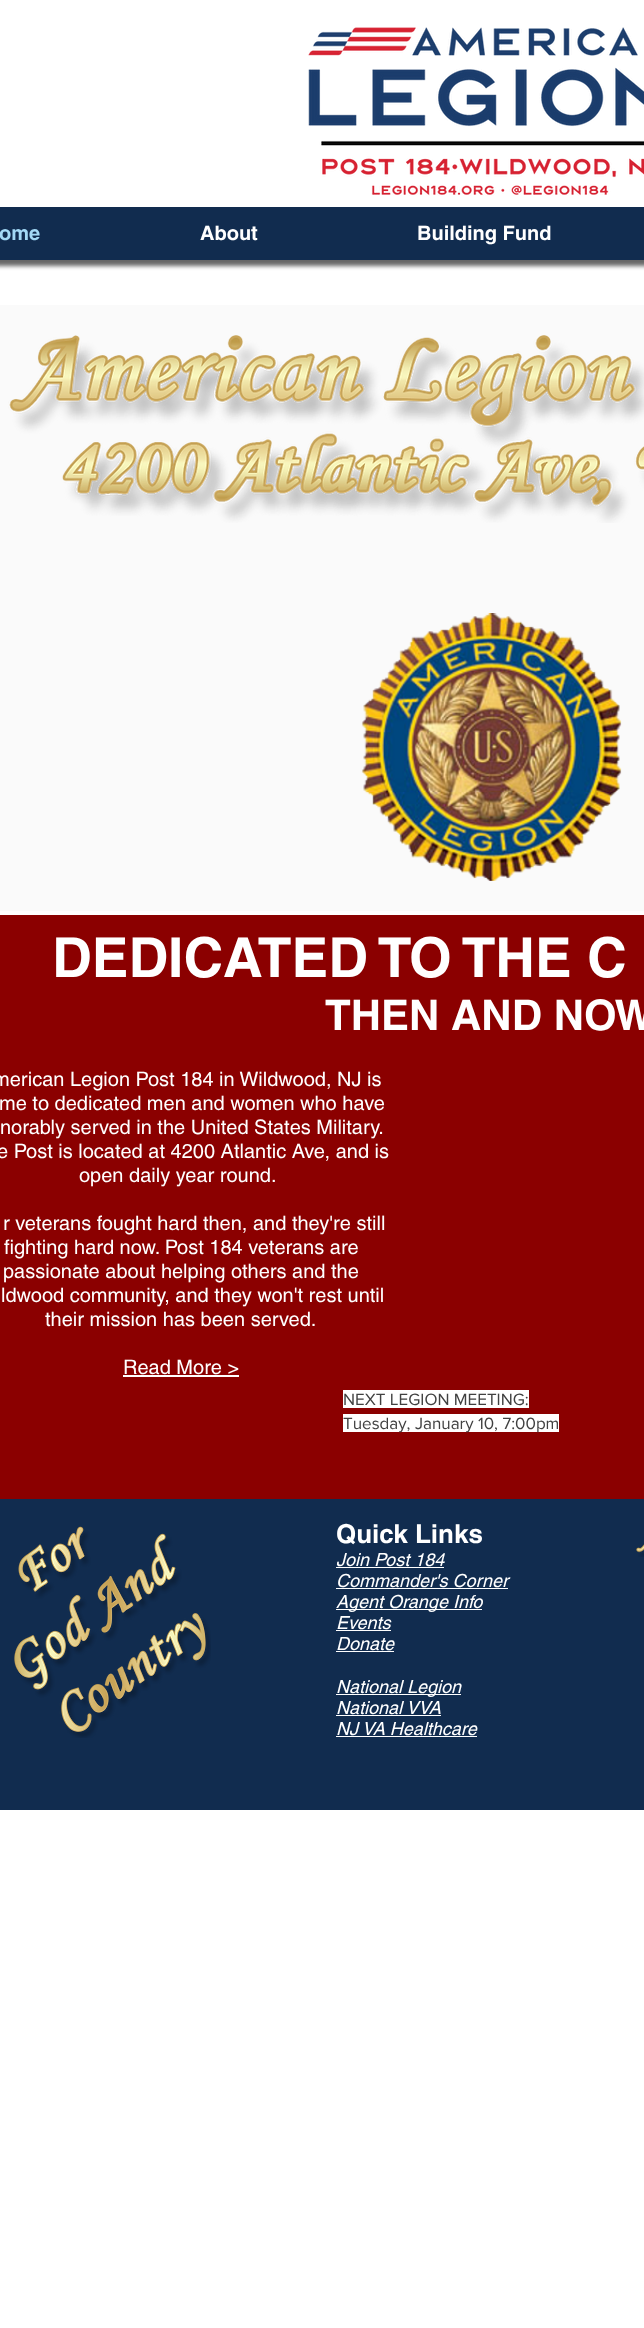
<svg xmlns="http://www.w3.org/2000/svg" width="644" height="2328">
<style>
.a{font:bold 20px helvetica;fill:#a3d9f6}
.b{font:bold 20px helvetica;fill:#fff}
.c{font:bold 55px helvetica;fill:#fff}
.d{font:bold 42px helvetica;fill:#fff}
.e{font:20px helvetica;fill:#fff}
.f{font:17px 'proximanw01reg';fill:#414141}
.g{font:bold 26px helvetica;fill:#fff}
.h{font:italic 18px helvetica;fill:#fff}
</style>
<rect width="100%" height="100%" fill="#fff"/>
<image href="1.png" x="308" y="27" width="336" height="169"/>
<path fill="#00000099" filter="blur(2px)" d="M-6 213h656v53H-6z"/>
<path fill="#112c4f" d="M0 207h644v53H0z"/>
<path fill="#fafafa" d="M0 305h644v606H0z"/>
<image href="2.png" x="8" y="335" width="636" height="188"/>
<image href="3.png" x="361" y="613" width="261" height="268"/>
<path fill="#8b0000" d="M0 915h644v584H0z"/>
<path fill="#fff" d="M123 1375h116v2H123z"/>
<path fill="#fff" d="M343 1390h186v18H343z"/>
<path fill="#fff" d="M343 1414h216v18H343z"/>
<path fill="#112c4f" d="M0 1499h644v311H0z"/>
<image href="4.png" x="14" y="1526" width="197" height="212"/>
<path fill="#fff" d="M336 1567h108v1H336z"/>
<path fill="#fff" d="M336 1588h172v1H336z"/>
<path fill="#fff" d="M336 1609h146v1H336z"/>
<path fill="#fff" d="M336 1630h55v1H336z"/>
<path fill="#fff" d="M336 1651h58v1H336z"/>
<path fill="#fff" d="M336 1694h125v1H336z"/>
<path fill="#fff" d="M336 1715h105v1H336z"/>
<path fill="#fff" d="M336 1736h141v1H336z"/>
<image href="5.png" x="636" y="1544" width="8" height="13"/>
<text class="a" x="-1" y="240">ome</text>
<text class="b" x="200" y="240">About</text>
<text class="b" x="417" y="240">Building Fund</text>
<text class="c" x="52" y="977">DEDICATED TO THE C</text>
<text class="d" x="325" y="1030">THEN AND NOW</text>
<text class="e" x="-7" y="1086">merican Legion Post 184 in Wildwood, NJ is</text>
<text class="e" x="-1" y="1110">me to dedicated men and women who have</text>
<text class="e" x="0" y="1134">norably served in the United States Military.</text>
<text class="e" x="-3" y="1158">e Post is located at 4200 Atlantic Ave, and is</text>
<text class="e" x="79" y="1182">open daily year round.</text>
<text class="e" x="3" y="1230">r veterans fought hard then, and they're still</text>
<text class="e" x="4" y="1254">fighting hard now. Post 184 veterans are</text>
<text class="e" x="3" y="1278">passionate about helping others and the</text>
<text class="e" x="1" y="1302">ldwood community, and they won't rest until</text>
<text class="e" x="45" y="1326">their mission has been served.</text>
<text class="e" x="123" y="1374">Read More &gt;</text>
<text class="f" x="343" y="1405">NEXT LEGION MEETING:</text>
<text class="f" x="343" y="1429">Tuesday, January 10, 7:00pm</text>
<text class="g" x="336" y="1543">Quick Links</text>
<text class="h" x="336" y="1566">Join Post 184</text>
<text class="h" x="336" y="1587">Commander's Corner</text>
<text class="h" x="336" y="1608">Agent Orange Info</text>
<text class="h" x="336" y="1629">Events</text>
<text class="h" x="336" y="1650">Donate</text>
<text class="h" x="336" y="1693">National Legion</text>
<text class="h" x="336" y="1714">National VVA</text>
<text class="h" x="336" y="1735">NJ VA Healthcare</text>
</svg>
